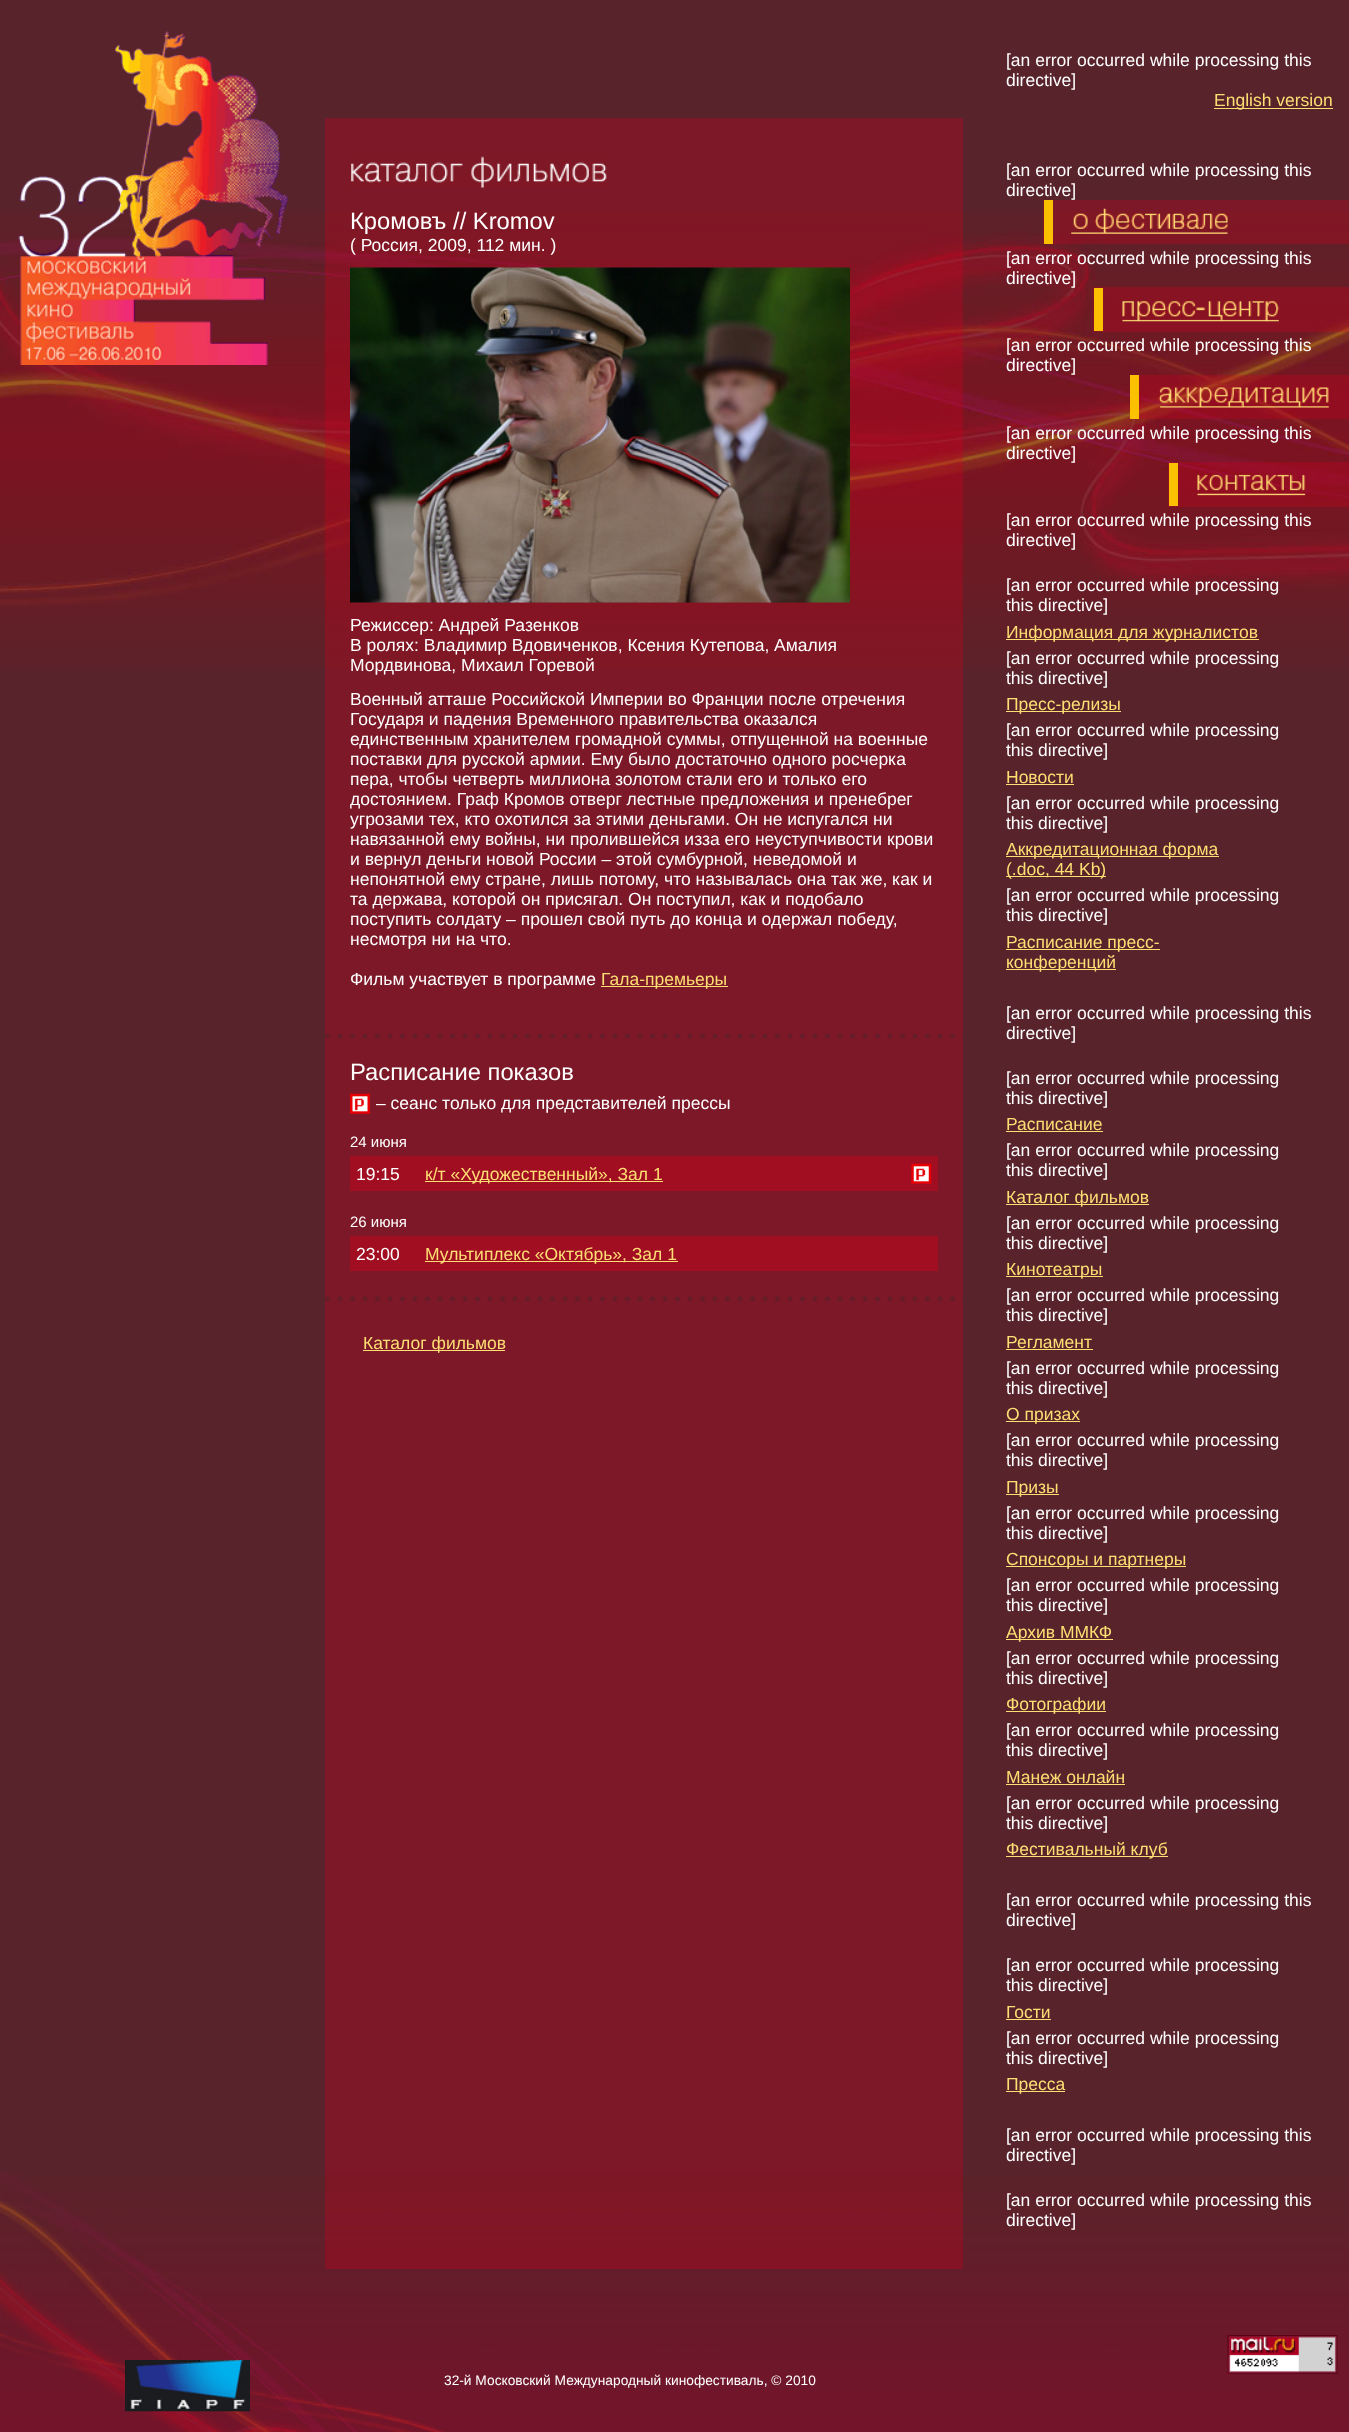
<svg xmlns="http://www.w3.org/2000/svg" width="1349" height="2432">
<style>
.a{font:23.75px Liberation Sans;fill:#fff}
.b{font:17.5px Liberation Sans;fill:#fff}
.c{font:17.5px Liberation Sans;fill:#ffdf74}
.d{font:15px Liberation Sans;fill:#fff}
.e{font:13.75px Liberation Sans;fill:#fff}
</style>
<rect width="100%" height="100%" fill="#58232b"/>
<image href="1.png" x="0" y="211" width="1349" height="458"/>
<image href="2.png" x="0" y="2171" width="1349" height="261"/>
<image href="3.png" x="18" y="31" width="270" height="334"/>
<path fill="#d1001e4d" d="M325 118h638v2151H325z"/>
<image href="4.png" x="350" y="156" width="257" height="32"/>
<image href="5.png" x="350" y="267" width="500" height="336"/>
<path fill="#ffdf74" d="M601 986h127v1H601z"/>
<image href="6.png" x="325" y="1033" width="638" height="6"/>
<image href="7.png" x="350" y="1093" width="20" height="21"/>
<path fill="#a10e22" d="M350 1156h588v35H350z"/>
<path fill="#ffdf74" d="M425 1181h238v1H425z"/>
<image href="8.png" x="911" y="1163" width="21" height="21"/>
<path fill="#a10e22" d="M350 1236h588v35H350z"/>
<path fill="#ffdf74" d="M425 1261h253v1H425z"/>
<image href="9.png" x="325" y="1296" width="638" height="6"/>
<path fill="#ffdf74" d="M363 1350h142v1H363z"/>
<path fill="#ffdf74" d="M1214 108h119v1H1214z"/>
<path fill="#d1001e4d" d="M1043 200h306v44H1043z"/>
<path fill="#fbc100" d="M1044 200h9v44H1044z"/>
<image href="10.png" x="1071" y="208" width="157" height="26"/>
<path fill="#d1001e4d" d="M1093 287h256v45H1093z"/>
<path fill="#fbc100" d="M1094 288h9v43H1094z"/>
<image href="11.png" x="1122" y="301" width="157" height="21"/>
<path fill="#d1001e4d" d="M1139 375h210v44H1139z"/>
<path fill="#fbc100" d="M1130 375h9v44H1130z"/>
<image href="12.png" x="1158" y="387" width="171" height="21"/>
<path fill="#d1001e4d" d="M1168 462h181v45H1168z"/>
<path fill="#fbc100" d="M1169 463h9v43H1169z"/>
<image href="13.png" x="1197" y="474" width="109" height="22"/>
<path fill="#ffdf74" d="M1006 639h253v1H1006z"/>
<path fill="#ffdf74" d="M1006 711h115v1H1006z"/>
<path fill="#ffdf74" d="M1006 784h68v1H1006z"/>
<path fill="#ffdf74" d="M1006 856h213v1H1006z"/>
<path fill="#ffdf74" d="M1006 876h100v1H1006z"/>
<path fill="#ffdf74" d="M1006 949h154v1H1006z"/>
<path fill="#ffdf74" d="M1006 969h110v1H1006z"/>
<path fill="#ffdf74" d="M1006 1131h97v1H1006z"/>
<path fill="#ffdf74" d="M1006 1204h143v1H1006z"/>
<path fill="#ffdf74" d="M1006 1276h97v1H1006z"/>
<path fill="#ffdf74" d="M1006 1349h87v1H1006z"/>
<path fill="#ffdf74" d="M1006 1421h74v1H1006z"/>
<path fill="#ffdf74" d="M1006 1494h53v1H1006z"/>
<path fill="#ffdf74" d="M1006 1566h180v1H1006z"/>
<path fill="#ffdf74" d="M1006 1639h107v1H1006z"/>
<path fill="#ffdf74" d="M1006 1711h100v1H1006z"/>
<path fill="#ffdf74" d="M1006 1784h119v1H1006z"/>
<path fill="#ffdf74" d="M1006 1856h162v1H1006z"/>
<path fill="#ffdf74" d="M1006 2019h45v1H1006z"/>
<path fill="#ffdf74" d="M1006 2091h59v1H1006z"/>
<image href="14.png" x="1227" y="2335" width="111" height="39"/>
<image href="15.png" x="125" y="2360" width="125" height="52"/>
<text class="a" x="350" y="229">Кромовъ // Kromov</text>
<text class="b" x="350" y="251">( Россия, 2009, 112 мин. )</text>
<text class="b" x="350" y="631">Режиссер: Андрей Разенков</text>
<text class="b" x="350" y="651">В ролях: Владимир Вдовиченков, Ксения Кутепова, Амалия</text>
<text class="b" x="350" y="671">Мордвинова, Михаил Горевой</text>
<text class="b" x="350" y="705">Военный атташе Российской Империи во Франции после отречения</text>
<text class="b" x="350" y="725">Государя и падения Временного правительства оказался</text>
<text class="b" x="350" y="745">единственным хранителем громадной суммы, отпущенной на военные</text>
<text class="b" x="350" y="765">поставки для русской армии. Ему было достаточно одного росчерка</text>
<text class="b" x="350" y="785">пера, чтобы четверть миллиона золотом стали его и только его</text>
<text class="b" x="350" y="805">достоянием. Граф Кромов отверг лестные предложения и пренебрег</text>
<text class="b" x="350" y="825">угрозами тех, кто охотился за этими деньгами. Он не испугался ни</text>
<text class="b" x="350" y="845">навязанной ему войны, ни пролившейся изза его неуступчивости крови</text>
<text class="b" x="350" y="865">и вернул деньги новой России – этой сумбурной, неведомой и</text>
<text class="b" x="350" y="885">непонятной ему стране, лишь потому, что называлась она так же, как и</text>
<text class="b" x="350" y="905">та держава, которой он присягал. Он поступил, как и подобало</text>
<text class="b" x="350" y="925">поступить солдату – прошел свой путь до конца и одержал победу,</text>
<text class="b" x="350" y="945">несмотря ни на что.</text>
<text class="b" x="350" y="985">Фильм участвует в программе</text>
<text class="c" x="601" y="985">Гала-премьеры</text>
<text class="a" x="350" y="1080">Расписание показов</text>
<text class="b" x="376" y="1109">– сеанс только для представителей прессы</text>
<text class="d" x="350" y="1147">24 июня</text>
<text class="b" x="356" y="1180">19:15</text>
<text class="c" x="425" y="1180">к/т «Художественный», Зал 1</text>
<text class="d" x="350" y="1227">26 июня</text>
<text class="b" x="356" y="1260">23:00</text>
<text class="c" x="425" y="1260">Мультиплекс «Октябрь», Зал 1</text>
<text class="c" x="363" y="1349">Каталог фильмов</text>
<text class="b" x="1006" y="66">[an error occurred while processing this</text>
<text class="b" x="1006" y="86">directive]</text>
<text class="c" x="1214" y="106">English version</text>
<text class="b" x="1006" y="176">[an error occurred while processing this</text>
<text class="b" x="1006" y="196">directive]</text>
<text class="b" x="1006" y="264">[an error occurred while processing this</text>
<text class="b" x="1006" y="284">directive]</text>
<text class="b" x="1006" y="351">[an error occurred while processing this</text>
<text class="b" x="1006" y="371">directive]</text>
<text class="b" x="1006" y="439">[an error occurred while processing this</text>
<text class="b" x="1006" y="459">directive]</text>
<text class="b" x="1006" y="526">[an error occurred while processing this</text>
<text class="b" x="1006" y="546">directive]</text>
<text class="b" x="1006" y="591">[an error occurred while processing</text>
<text class="b" x="1006" y="611">this directive]</text>
<text class="c" x="1006" y="638">Информация для журналистов</text>
<text class="b" x="1006" y="664">[an error occurred while processing</text>
<text class="b" x="1006" y="684">this directive]</text>
<text class="c" x="1006" y="710">Пресс-релизы</text>
<text class="b" x="1006" y="736">[an error occurred while processing</text>
<text class="b" x="1006" y="756">this directive]</text>
<text class="c" x="1006" y="783">Новости</text>
<text class="b" x="1006" y="809">[an error occurred while processing</text>
<text class="b" x="1006" y="829">this directive]</text>
<text class="c" x="1006" y="855">Аккредитационная форма</text>
<text class="c" x="1006" y="875">(.doc, 44 Kb)</text>
<text class="b" x="1006" y="901">[an error occurred while processing</text>
<text class="b" x="1006" y="921">this directive]</text>
<text class="c" x="1006" y="948">Расписание пресс-</text>
<text class="c" x="1006" y="968">конференций</text>
<text class="b" x="1006" y="1019">[an error occurred while processing this</text>
<text class="b" x="1006" y="1039">directive]</text>
<text class="b" x="1006" y="1084">[an error occurred while processing</text>
<text class="b" x="1006" y="1104">this directive]</text>
<text class="c" x="1006" y="1130">Расписание</text>
<text class="b" x="1006" y="1156">[an error occurred while processing</text>
<text class="b" x="1006" y="1176">this directive]</text>
<text class="c" x="1006" y="1203">Каталог фильмов</text>
<text class="b" x="1006" y="1229">[an error occurred while processing</text>
<text class="b" x="1006" y="1249">this directive]</text>
<text class="c" x="1006" y="1275">Кинотеатры</text>
<text class="b" x="1006" y="1301">[an error occurred while processing</text>
<text class="b" x="1006" y="1321">this directive]</text>
<text class="c" x="1006" y="1348">Регламент</text>
<text class="b" x="1006" y="1374">[an error occurred while processing</text>
<text class="b" x="1006" y="1394">this directive]</text>
<text class="c" x="1006" y="1420">О призах</text>
<text class="b" x="1006" y="1446">[an error occurred while processing</text>
<text class="b" x="1006" y="1466">this directive]</text>
<text class="c" x="1006" y="1493">Призы</text>
<text class="b" x="1006" y="1519">[an error occurred while processing</text>
<text class="b" x="1006" y="1539">this directive]</text>
<text class="c" x="1006" y="1565">Спонсоры и партнеры</text>
<text class="b" x="1006" y="1591">[an error occurred while processing</text>
<text class="b" x="1006" y="1611">this directive]</text>
<text class="c" x="1006" y="1638">Архив ММКФ</text>
<text class="b" x="1006" y="1664">[an error occurred while processing</text>
<text class="b" x="1006" y="1684">this directive]</text>
<text class="c" x="1006" y="1710">Фотографии</text>
<text class="b" x="1006" y="1736">[an error occurred while processing</text>
<text class="b" x="1006" y="1756">this directive]</text>
<text class="c" x="1006" y="1783">Манеж онлайн</text>
<text class="b" x="1006" y="1809">[an error occurred while processing</text>
<text class="b" x="1006" y="1829">this directive]</text>
<text class="c" x="1006" y="1855">Фестивальный клуб</text>
<text class="b" x="1006" y="1906">[an error occurred while processing this</text>
<text class="b" x="1006" y="1926">directive]</text>
<text class="b" x="1006" y="1971">[an error occurred while processing</text>
<text class="b" x="1006" y="1991">this directive]</text>
<text class="c" x="1006" y="2018">Гости</text>
<text class="b" x="1006" y="2044">[an error occurred while processing</text>
<text class="b" x="1006" y="2064">this directive]</text>
<text class="c" x="1006" y="2090">Пресса</text>
<text class="b" x="1006" y="2141">[an error occurred while processing this</text>
<text class="b" x="1006" y="2161">directive]</text>
<text class="b" x="1006" y="2206">[an error occurred while processing this</text>
<text class="b" x="1006" y="2226">directive]</text>
<text class="e" x="444" y="2385">32-й Московский Международный кинофестиваль, © 2010</text>
</svg>
